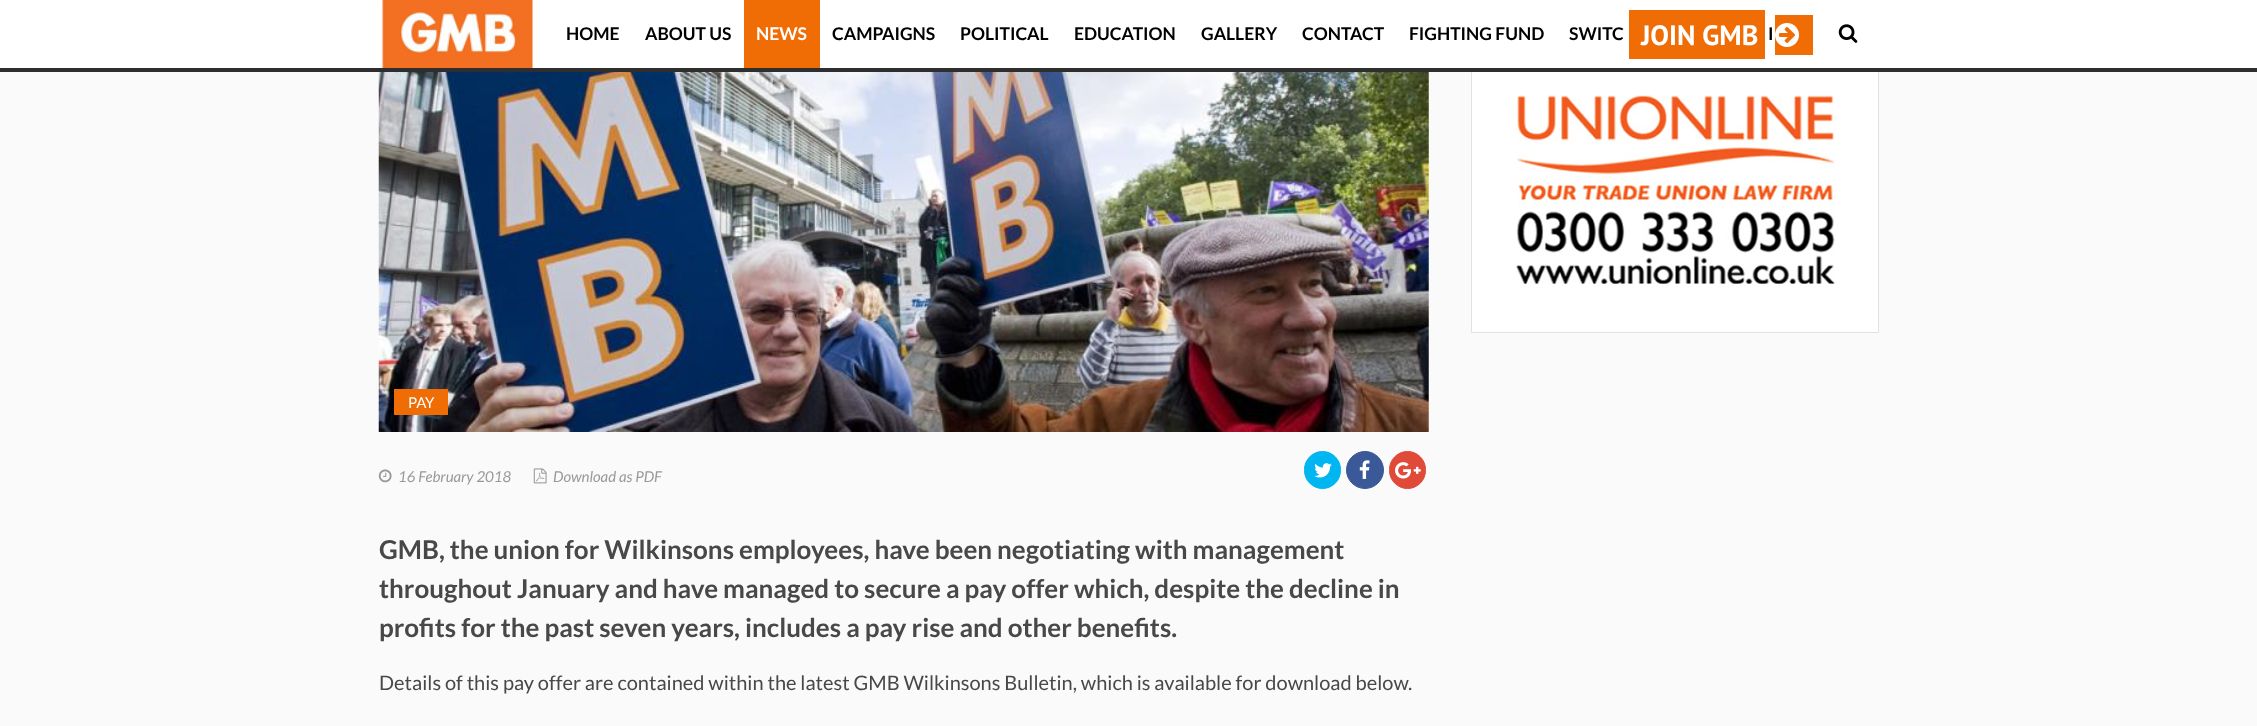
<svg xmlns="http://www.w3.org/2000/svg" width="2257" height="726">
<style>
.a{font:bold 28px PT Sans;fill:#fff}
.b{font:bold 17.5px Lato;fill:#000}
.c{font:bold 17.5px Lato;fill:#fff}
.d{font:15px Lato;fill:#fff}
.e{font:italic 15px Lato;fill:#999}
.f{font:bold 26px Lato;fill:#494848}
.g{font:20px Lato;fill:#494848}
</style>
<rect width="100%" height="100%" fill="#fafafa"/>
<path fill="#fff" d="M1472 72h406v260H1472z"/>
<path fill="none" stroke="#e1e1e1" d="M1471.5 49.5h407v283H1471.5z"/>
<path fill="#fff" d="M0 0h2257v68H0z"/>
<path fill="#2e2e2e" d="M0 68h2257v4H0z"/>
<image href="1.png" x="382" y="0" width="151" height="68"/>
<path fill="#f06d06" d="M1629 10h136v49H1629z"/>
<path fill="#f06d06" d="M1775 15h38v40H1775z"/>
<image href="2.png" x="1775" y="23" width="24" height="24"/>
<image href="3.png" x="1838" y="24" width="20" height="19"/>
<path fill="#f06d06" d="M744 0h76v68H744z"/>
<image href="4.png" x="1516" y="95" width="319" height="189"/>
<image href="5.png" x="378" y="72" width="1051" height="360"/>
<path fill="#f06d06" d="M394 389h54v26H394z"/>
<image href="6.png" x="378" y="469" width="14" height="14"/>
<image href="7.png" x="533" y="468" width="14" height="16"/>
<rect fill="#00b6f1" stroke="#00b6f1" x="1304.5" y="451.5" width="36" height="37" rx="18"/>
<image href="8.png" x="1314" y="463" width="18" height="15"/>
<circle fill="#3b5998" stroke="#3b5998" cx="1365" cy="470" r="18.5"/>
<image href="9.png" x="1359" y="460" width="11" height="19"/>
<rect fill="#e04a39" stroke="#e04a39" x="1389.5" y="451.5" width="36" height="37" rx="18"/>
<image href="10.png" x="1395" y="462" width="26" height="17"/>
<text class="a" x="1641" y="45">JOIN GMB</text>
<text class="b" x="566" y="40">HOME</text>
<text class="b" x="645" y="40">ABOUT US</text>
<text class="c" x="756" y="40">NEWS</text>
<text class="b" x="832" y="40">CAMPAIGNS</text>
<text class="b" x="960" y="40">POLITICAL</text>
<text class="b" x="1074" y="40">EDUCATION</text>
<text class="b" x="1201" y="40">GALLERY</text>
<text class="b" x="1302" y="40">CONTACT</text>
<text class="b" x="1409" y="40">FIGHTING FUND</text>
<text class="b" x="1569" y="40">SWITC</text>
<text class="b" x="1768" y="40">I</text>
<text class="d" x="408" y="408">PAY</text>
<text class="e" x="398" y="482">16 February 2018</text>
<text class="e" x="553" y="482">Download as PDF</text>
<text class="f" x="379" y="559">GMB, the union for Wilkinsons employees, have been negotiating with management</text>
<text class="f" x="379" y="598">throughout January and have managed to secure a pay offer which, despite the decline in</text>
<text class="f" x="379" y="637">profits for the past seven years, includes a pay rise and other benefits.</text>
<text class="g" x="379" y="690">Details of this pay offer are contained within the latest GMB Wilkinsons Bulletin, which is available for download below.</text>
</svg>
